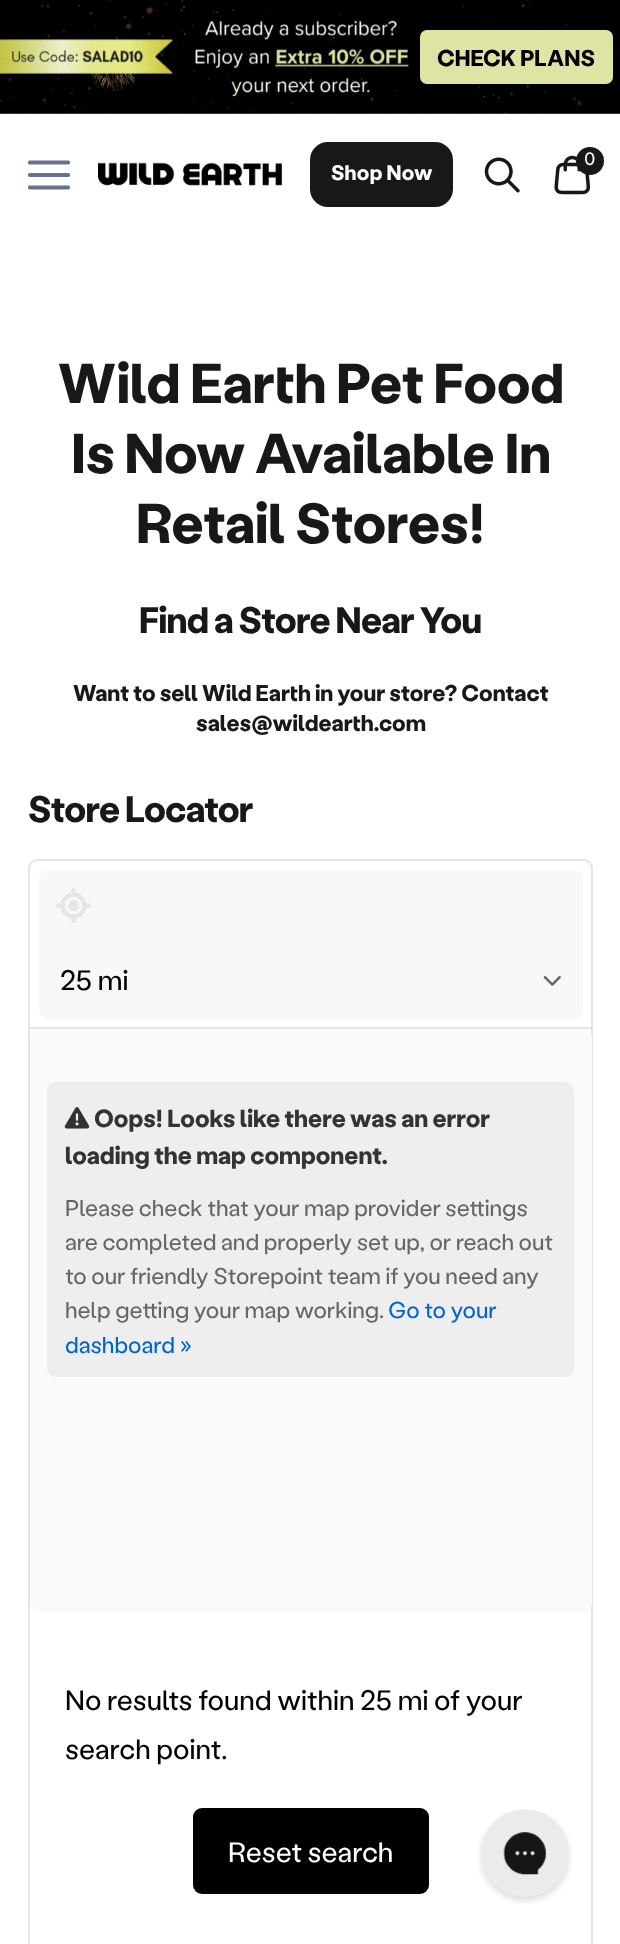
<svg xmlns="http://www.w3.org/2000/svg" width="620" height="1944">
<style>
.a{font:bold 22.75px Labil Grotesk;fill:#000}
.b{font:18px Labil Grotesk;fill:#fff}
.c{font:bold 21px Labil Grotesk;letter-spacing:0.25px;fill:#fff}
.d{font:bold 56px Labil Grotesk;fill:#18181b}
.e{font:bold 36.75px Labil Grotesk;letter-spacing:-0.75px;fill:#18181b}
.f{font:bold 22.75px Labil Grotesk;fill:#18181b}
.g{font:28px Labil Grotesk;fill:#000}
.h{font:bold 24.5px Labil Grotesk;fill:#333}
.i{font:22.75px Labil Grotesk;fill:#666}
.j{font:22.75px Labil Grotesk;fill:#0064d0}
.k{font:28px Labil Grotesk;fill:#fff}
</style>
<defs>
<clipPath id="clip1"><path d="M28 154h42v42H28z"/></clipPath>
</defs>
<rect width="100%" height="100%" fill="#fff"/>
<image href="1.png" x="0" y="0" width="620" height="114"/>
<rect fill="#dfe3a4" x="420" y="30" width="193" height="54" rx="7"/>
<g clip-path="url(#clip1)">
<path fill="none" stroke="#64748b" stroke-width="4.2" stroke-linecap="round" stroke-linejoin="round" d="M30 175h38m-38-12.5h38m-38 25h38"/>
</g>
<image href="2.png" x="98" y="162" width="184" height="24"/>
<image href="3.png" x="484" y="157" width="36" height="36"/>
<image href="4.png" x="554" y="155" width="36" height="40"/>
<circle fill="#18181b" cx="590" cy="161" r="14"/>
<rect fill="#18181b" stroke="#18181b" stroke-width="4" x="312" y="144" width="139" height="61" rx="16"/>
<rect fill="none" stroke="#e5e5e5" stroke-width="2" x="29" y="860" width="563" height="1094" rx="8"/>
<path fill="#0000001a" d="M30 1027h562v2H30z"/>
<rect fill="#f8f8f8" x="39" y="870" width="544" height="149" rx="9"/>
<image href="5.png" x="56" y="888" width="35" height="35"/>
<image href="6.png" x="543" y="976" width="18" height="10"/>
<rect fill="#fafafa" x="30" y="1029" width="562" height="583" rx="9"/>
<rect fill="#eee" x="47" y="1082" width="527" height="295" rx="9"/>
<image href="7.png" x="64" y="1107" width="26" height="22"/>
<rect fill="#000" x="193" y="1808" width="236" height="86" rx="9"/>
<rect fill="none" stroke="#0000001a" stroke-width="2" x="194" y="1809" width="234" height="84" rx="8"/>
<image href="8.png" x="478" y="1809" width="94" height="95"/>
<text class="a" x="437" y="66">CHECK PLANS</text>
<text class="b" x="584" y="165">0</text>
<text class="c" x="331" y="180">Shop Now</text>
<text class="d" x="58" y="403">Wild Earth Pet Food</text>
<text class="d" x="71" y="473">Is Now Available In</text>
<text class="d" x="136" y="543">Retail Stores!</text>
<text class="e" x="139" y="633">Find a Store Near You</text>
<text class="f" x="73" y="701">Want to sell Wild Earth in your store? Contact</text>
<text class="f" x="196" y="731">sales@wildearth.com</text>
<text class="e" x="28" y="822">Store Locator</text>
<text class="g" x="60" y="990">25 mi</text>
<text class="h" x="94" y="1127">Oops! Looks like there was an error</text>
<text class="h" x="65" y="1164">loading the map component.</text>
<text class="i" x="65" y="1216">Please check that your map provider settings</text>
<text class="i" x="65" y="1250">are completed and properly set up, or reach out</text>
<text class="i" x="65" y="1284">to our friendly Storepoint team if you need any</text>
<text class="i" x="65" y="1318">help getting your map working.</text>
<text class="j" x="388" y="1318">Go to your</text>
<text class="j" x="65" y="1353">dashboard »</text>
<text class="g" x="65" y="1710">No results found within 25 mi of your</text>
<text class="g" x="65" y="1759">search point.</text>
<text class="k" x="228" y="1862">Reset search</text>
</svg>
